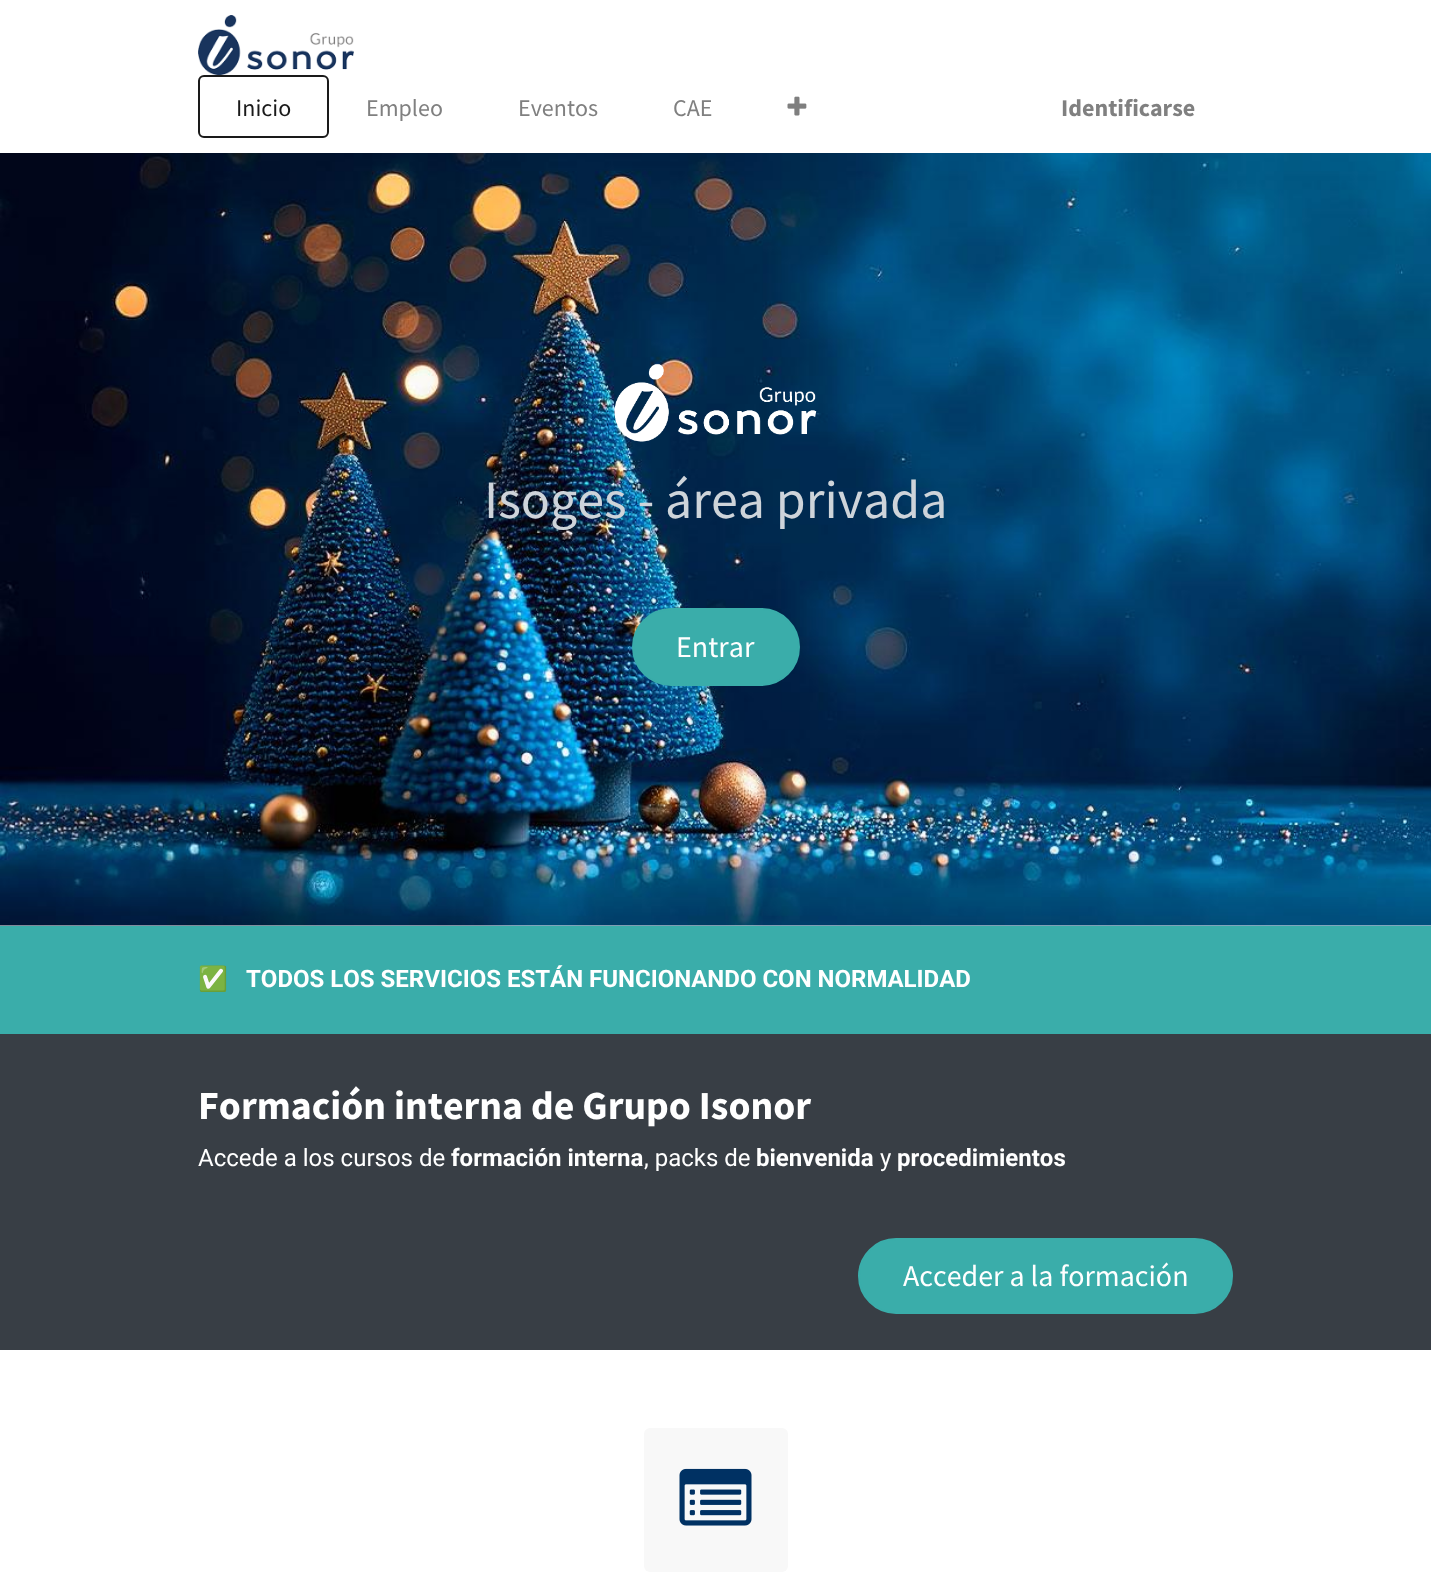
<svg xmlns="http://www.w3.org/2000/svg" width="1431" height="1573">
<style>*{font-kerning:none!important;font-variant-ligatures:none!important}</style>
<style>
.a{font:24px Source Sans Pro;fill:#1a1a1a}
.b{font:24px Source Sans Pro;fill:#808080}
.c{font:bold 24px Source Sans Pro;fill:#808080}
.d{font:54px Source Sans Pro;fill:#ced4da}
.e{font:30px Source Sans Pro;fill:#fff}
.f{font:24px Noto Color Emoji;fill:#fff}
.g{font:bold 24px Roboto;fill:#fff}
.h{font:bold 39.75px Source Sans Pro;fill:#fff}
.i{font:24px Roboto;fill:#fff}
</style>
<rect width="100%" height="100%" fill="#fff"/>
<image href="1.png" x="198" y="15" width="156" height="60"/>
<rect fill="none" stroke="#1a1a1a" stroke-width="2" x="199" y="76" width="129" height="61" rx="5"/>
<image href="2.png" x="787" y="96" width="20" height="20"/>
<image href="3.png" x="0" y="153" width="1431" height="773"/>
<image href="4.png" x="614" y="363" width="203" height="79"/>
<rect fill="#3aadaa" stroke="#3aadaa" stroke-width="2" x="633" y="609" width="166" height="76" rx="38"/>
<path fill="#3aadaa" d="M0 926h1431v108H0z"/>
<path fill="#383e45" d="M0 1034h1431v316H0z"/>
<rect fill="#3aadaa" stroke="#3aadaa" stroke-width="2" x="859" y="1239" width="373" height="74" rx="37"/>
<rect fill="#f8f8f8" x="644" y="1428" width="144" height="144" rx="6"/>
<image href="5.png" x="679" y="1468" width="73" height="58"/>
<text class="a" x="236" y="116">Inicio</text>
<text class="b" x="366" y="116">Empleo</text>
<text class="b" x="518" y="116">Eventos</text>
<text class="b" x="673" y="116">CAE</text>
<text class="c" x="1061" y="116">Identificarse</text>
<text class="d" x="484" y="518">Isoges - área privada</text>
<text class="e" x="676" y="657">Entrar</text>
<text class="f" x="198" y="987">✅</text>
<text class="g" x="246" y="987">TODOS LOS SERVICIOS ESTÁN FUNCIONANDO CON NORMALIDAD</text>
<text class="h" x="198" y="1119">Formación interna de Grupo Isonor</text>
<text class="i" x="198" y="1166">Accede a los cursos de</text>
<text class="g" x="451" y="1166">formación interna</text>
<text class="i" x="644" y="1166">, packs de</text>
<text class="g" x="756" y="1166">bienvenida</text>
<text class="i" x="880" y="1166">y</text>
<text class="g" x="897" y="1166">procedimientos</text>
<text class="e" x="903" y="1286">Acceder a la formación</text>
</svg>
